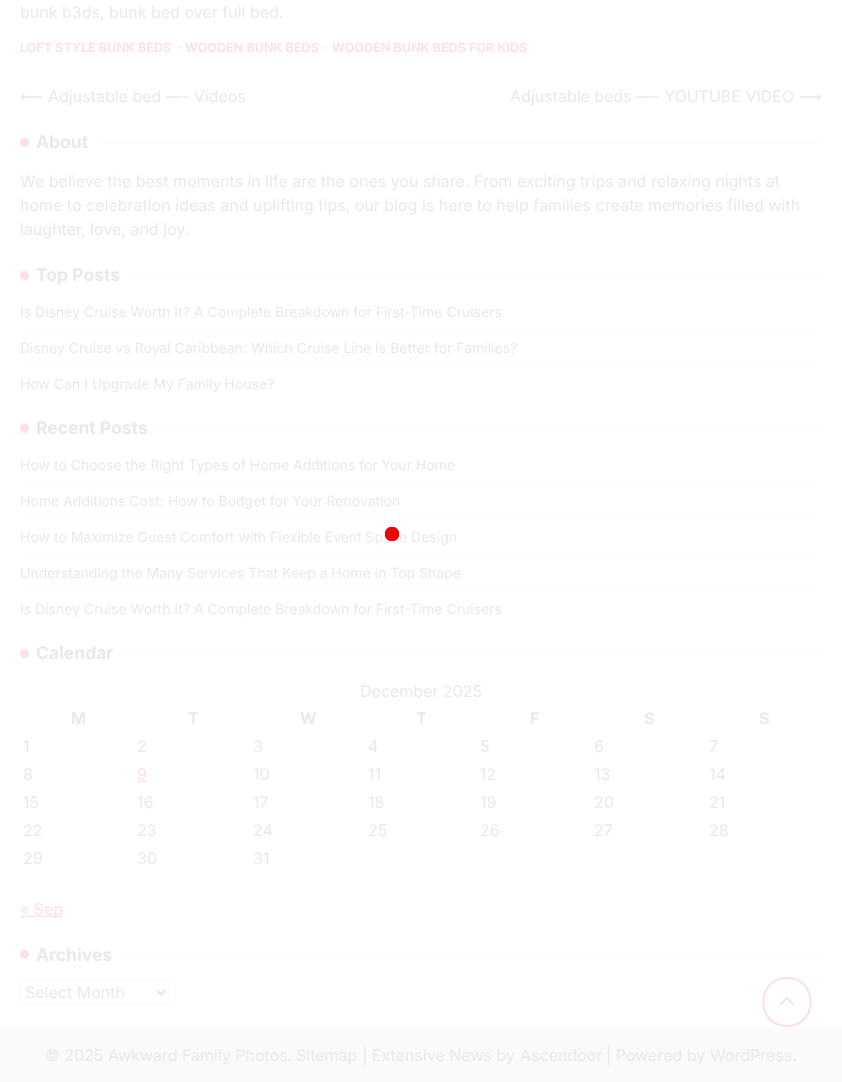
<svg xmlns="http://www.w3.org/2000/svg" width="842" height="1082">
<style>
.a{font:16px Inter;fill:#e8e9ea}
.b{font:600 12.6px Inter;fill:#fde0e0}
.c{font:bold 12.6px Liberation Serif;fill:#e8e9ea}
.d{font:16px DejaVu Sans;fill:#e8e9ea}
.e{font:bold 17.5px Inter;fill:#e8e9ea}
.f{font:14px Inter;fill:#e8e9ea}
.g{font:bold 16px Inter;fill:#e8e9ea}
.h{font:16px Inter;fill:#fde0e0}
</style>
<defs>
<radialGradient id="g1" gradientUnits="userSpaceOnUse" cx="392" cy="534" r="7.5"><stop offset="0.9" stop-color="#ed0000" stop-opacity="0.66"/><stop offset="1" stop-color="#ed0000" stop-opacity="0"/></radialGradient>
</defs>
<rect width="100%" height="100%" fill="#fff"/>
<circle fill="#fde0e0" cx="24.5" cy="142.5" r="4.5"/>
<path fill="#fbfbfb" d="M98 140h724v1H98z"/>
<path fill="#fbfbfb" d="M98 143h724v1H98z"/>
<circle fill="#fde0e0" cx="24.5" cy="275.5" r="4.5"/>
<path fill="#fbfbfb" d="M130 273h692v1H130z"/>
<path fill="#fbfbfb" d="M130 276h692v1H130z"/>
<path fill="#fcfcfc" d="M20 329h802v1H20z"/>
<path fill="#fcfcfc" d="M20 365h802v1H20z"/>
<circle fill="#fde0e0" cx="24.5" cy="428.5" r="4.5"/>
<path fill="#fbfbfb" d="M157 426h665v1H157z"/>
<path fill="#fbfbfb" d="M157 429h665v1H157z"/>
<path fill="#fcfcfc" d="M20 482h802v1H20z"/>
<path fill="#fcfcfc" d="M20 518h802v1H20z"/>
<path fill="#fcfcfc" d="M20 554h802v1H20z"/>
<path fill="#fcfcfc" d="M20 590h802v1H20z"/>
<circle fill="#fde0e0" cx="24.5" cy="653.5" r="4.5"/>
<path fill="#fbfbfb" d="M123 651h699v1H123z"/>
<path fill="#fbfbfb" d="M123 654h699v1H123z"/>
<path fill="#fde0e0" d="M137 781h10v1H137z"/>
<path fill="#fde0e0" d="M20 916h43v1H20z"/>
<circle fill="#fde0e0" cx="24.5" cy="954.5" r="4.5"/>
<path fill="#fbfbfb" d="M122 953h700v1H122z"/>
<path fill="#fbfbfb" d="M122 956h700v1H122z"/>
<path fill="none" stroke="#fafafa" d="M20.5 980.5h149v23H20.5z"/>
<path fill="none" stroke="#e8e8e8" stroke-width="2" d="M157 990.5l4 4l4-4"/>
<path fill="url(#g1)" d="M385 527h14v14H385z"/>
<path fill="url(#g1)" d="M385 527h14v14H385z"/>
<path fill="url(#g1)" d="M385 527h14v14H385z"/>
<path fill="url(#g1)" d="M385 527h14v14H385z"/>
<image href="1.png" x="780" y="997" width="14" height="8"/>
<path fill="none" stroke="#fde0e0" stroke-width="2" d="M787 978c31.5 0 31.5 48 0 48c-31.5 0-31.5-48 0-48"/>
<path fill="#fafafb" d="M0 1028h842v54H0z"/>
<text class="a" x="20" y="18">bunk b3ds, bunk bed over full bed.</text>
<text class="b" x="20" y="52">LOFT STYLE BUNK BEDS</text>
<text class="c" x="177" y="52">∙</text>
<text class="b" x="185" y="52">WOODEN BUNK BEDS</text>
<text class="c" x="324" y="52">∙</text>
<text class="b" x="332" y="52">WOODEN BUNK BEDS FOR KIDS</text>
<text class="d" x="20" y="102">⟵</text>
<text class="a" x="48" y="102">Adjustable bed —- Videos</text>
<text class="a" x="510" y="102">Adjustable beds —- YOUTUBE VIDEO</text>
<text class="d" x="799" y="102">⟶</text>
<text class="e" x="36" y="148">About</text>
<text class="a" x="20" y="187">We believe the best moments in life are the ones you share. From exciting trips and relaxing nights at</text>
<text class="a" x="20" y="211">home to celebration ideas and uplifting tips, our blog is here to help families create memories filled with</text>
<text class="a" x="20" y="235">laughter, love, and joy.</text>
<text class="e" x="36" y="281">Top Posts</text>
<text class="f" x="20" y="317">Is Disney Cruise Worth It? A Complete Breakdown for First-Time Cruisers</text>
<text class="f" x="20" y="353">Disney Cruise vs Royal Caribbean: Which Cruise Line Is Better for Families?</text>
<text class="f" x="20" y="389">How Can I Upgrade My Family House?</text>
<text class="e" x="36" y="434">Recent Posts</text>
<text class="f" x="20" y="470">How to Choose the Right Types of Home Additions for Your Home</text>
<text class="f" x="20" y="506">Home Additions Cost: How to Budget for Your Renovation</text>
<text class="f" x="20" y="542">How to Maximize Guest Comfort with Flexible Event Sp</text>
<text class="f" x="399" y="542">e Design</text>
<text class="f" x="20" y="578">Understanding the Many Services That Keep a Home in Top Shape</text>
<text class="f" x="20" y="614">Is Disney Cruise Worth It? A Complete Breakdown for First-Time Cruisers</text>
<text class="e" x="36" y="659">Calendar</text>
<text class="a" x="360" y="697">December 2025</text>
<text class="g" x="71" y="724">M</text>
<text class="g" x="188" y="724">T</text>
<text class="g" x="300" y="724">W</text>
<text class="g" x="416" y="724">T</text>
<text class="g" x="530" y="724">F</text>
<text class="g" x="644" y="724">S</text>
<text class="g" x="759" y="724">S</text>
<text class="a" x="23" y="752">1</text>
<text class="a" x="137" y="752">2</text>
<text class="a" x="253" y="752">3</text>
<text class="a" x="368" y="752">4</text>
<text class="a" x="480" y="752">5</text>
<text class="a" x="594" y="752">6</text>
<text class="a" x="709" y="752">7</text>
<text class="a" x="23" y="780">8</text>
<text class="h" x="137" y="780">9</text>
<text class="a" x="253" y="780">10</text>
<text class="a" x="368" y="780">11</text>
<text class="a" x="480" y="780">12</text>
<text class="a" x="594" y="780">13</text>
<text class="a" x="709" y="780">14</text>
<text class="a" x="23" y="808">15</text>
<text class="a" x="137" y="808">16</text>
<text class="a" x="253" y="808">17</text>
<text class="a" x="368" y="808">18</text>
<text class="a" x="480" y="808">19</text>
<text class="a" x="594" y="808">20</text>
<text class="a" x="709" y="808">21</text>
<text class="a" x="23" y="836">22</text>
<text class="a" x="137" y="836">23</text>
<text class="a" x="253" y="836">24</text>
<text class="a" x="368" y="836">25</text>
<text class="a" x="480" y="836">26</text>
<text class="a" x="594" y="836">27</text>
<text class="a" x="709" y="836">28</text>
<text class="a" x="23" y="864">29</text>
<text class="a" x="137" y="864">30</text>
<text class="a" x="253" y="864">31</text>
<text class="h" x="20" y="915">« Sep</text>
<text class="e" x="36" y="961">Archives</text>
<text class="a" x="25" y="998">Select Month</text>
<text class="a" x="45" y="1061">© 2025</text>
<text class="a" x="108" y="1061">Awkward Family Photos</text>
<text class="a" x="287" y="1061">.</text>
<text class="a" x="296" y="1061">Sitemap</text>
<text class="a" x="362" y="1061">| Extensive News by</text>
<text class="a" x="520" y="1061">Ascendoor</text>
<text class="a" x="606" y="1061">| Powered by</text>
<text class="a" x="710" y="1061">WordPress</text>
<text class="a" x="793" y="1061">.</text>
</svg>
